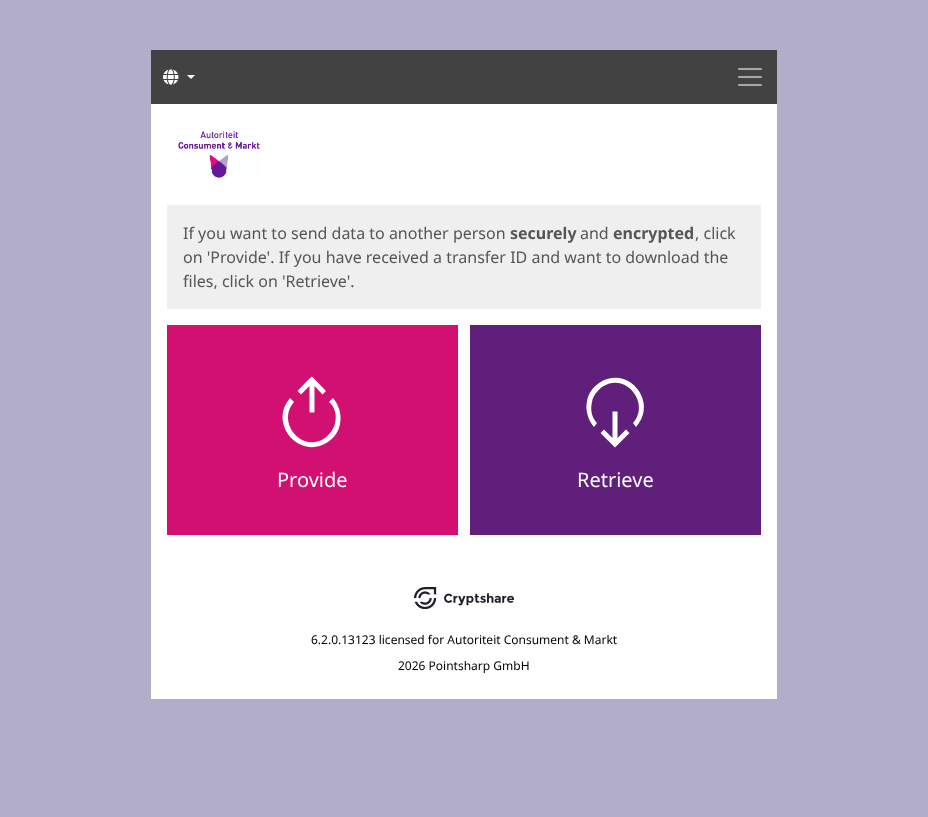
<svg xmlns="http://www.w3.org/2000/svg" width="928" height="817">
<style>
.a{font:16px Noto Sans;fill:#555}
.b{font:bold 16px Noto Sans;fill:#555}
.c{font:20px Noto Sans;fill:#fff}
.d{font:12px Noto Sans;fill:#000}
</style>
<rect width="100%" height="100%" fill="#b2adc9"/>
<path fill="#fff" d="M151 104h626v595H151z"/>
<path fill="#424242" d="M151 50h626v54H151z"/>
<image href="1.png" x="163" y="69" width="16" height="16"/>
<path fill="#fff" d="M187 75h8l-4 4z"/>
<image href="2.png" x="738" y="68" width="24" height="18"/>
<image href="3.png" x="178" y="131" width="82" height="47"/>
<path fill="#f0eff0" d="M167 205h594v104H167z"/>
<path fill="#d11072" d="M167 325h291v210H167z"/>
<path fill="#fff" d="M297.5 391l3.5 3.5l8.5-8.5v26.5h5v-26.5l8 8.5l3.5-3.5l-14-14.5l-4 3.5z"/>
<path fill="#fff" d="M333 398l-4 4c6 5 8 13 6 21c-1 6-5 11-10 15c-23 16-49-16-31-36l-4-4c-22 25 9 63 38 44c6-4 11-11 12-18c2-9-1-19-7-26z"/>
<path fill="#5f1f7a" d="M470 325h291v210H470z"/>
<path fill="#fff" d="M629.5 433l-3.5-3.5l-8.5 8.5v-26.5h-5v26.5l-8.5-8.5l-3.5 3.5l14.5 14.5l3.5-3.5z"/>
<path fill="#fff" d="M594 427l3-4c-5-5-7-13-5-21c1-6 5-11 10-15c23-16 49 16 31 36l3 4c23-25-8-63-37-44c-6 4-11 11-12 18c-2 9 1 19 7 26z"/>
<image href="4.png" x="414" y="587" width="100" height="22"/>
<text class="a" x="183" y="239">If you want to send data to another person</text>
<text class="b" x="510" y="239">securely</text>
<text class="a" x="580" y="239">and</text>
<text class="b" x="613" y="239">encrypted</text>
<text class="a" x="695" y="239">, click</text>
<text class="a" x="183" y="263">on 'Provide'. If you have received a transfer ID and want to download the</text>
<text class="a" x="183" y="287">files, click on 'Retrieve'.</text>
<text class="c" x="277" y="487">Provide</text>
<text class="c" x="577" y="487">Retrieve</text>
<text class="d" x="311" y="644">6.2.0.13123 licensed for Autoriteit Consument &amp; Markt</text>
<text class="d" x="398" y="670">2026 Pointsharp GmbH</text>
</svg>
